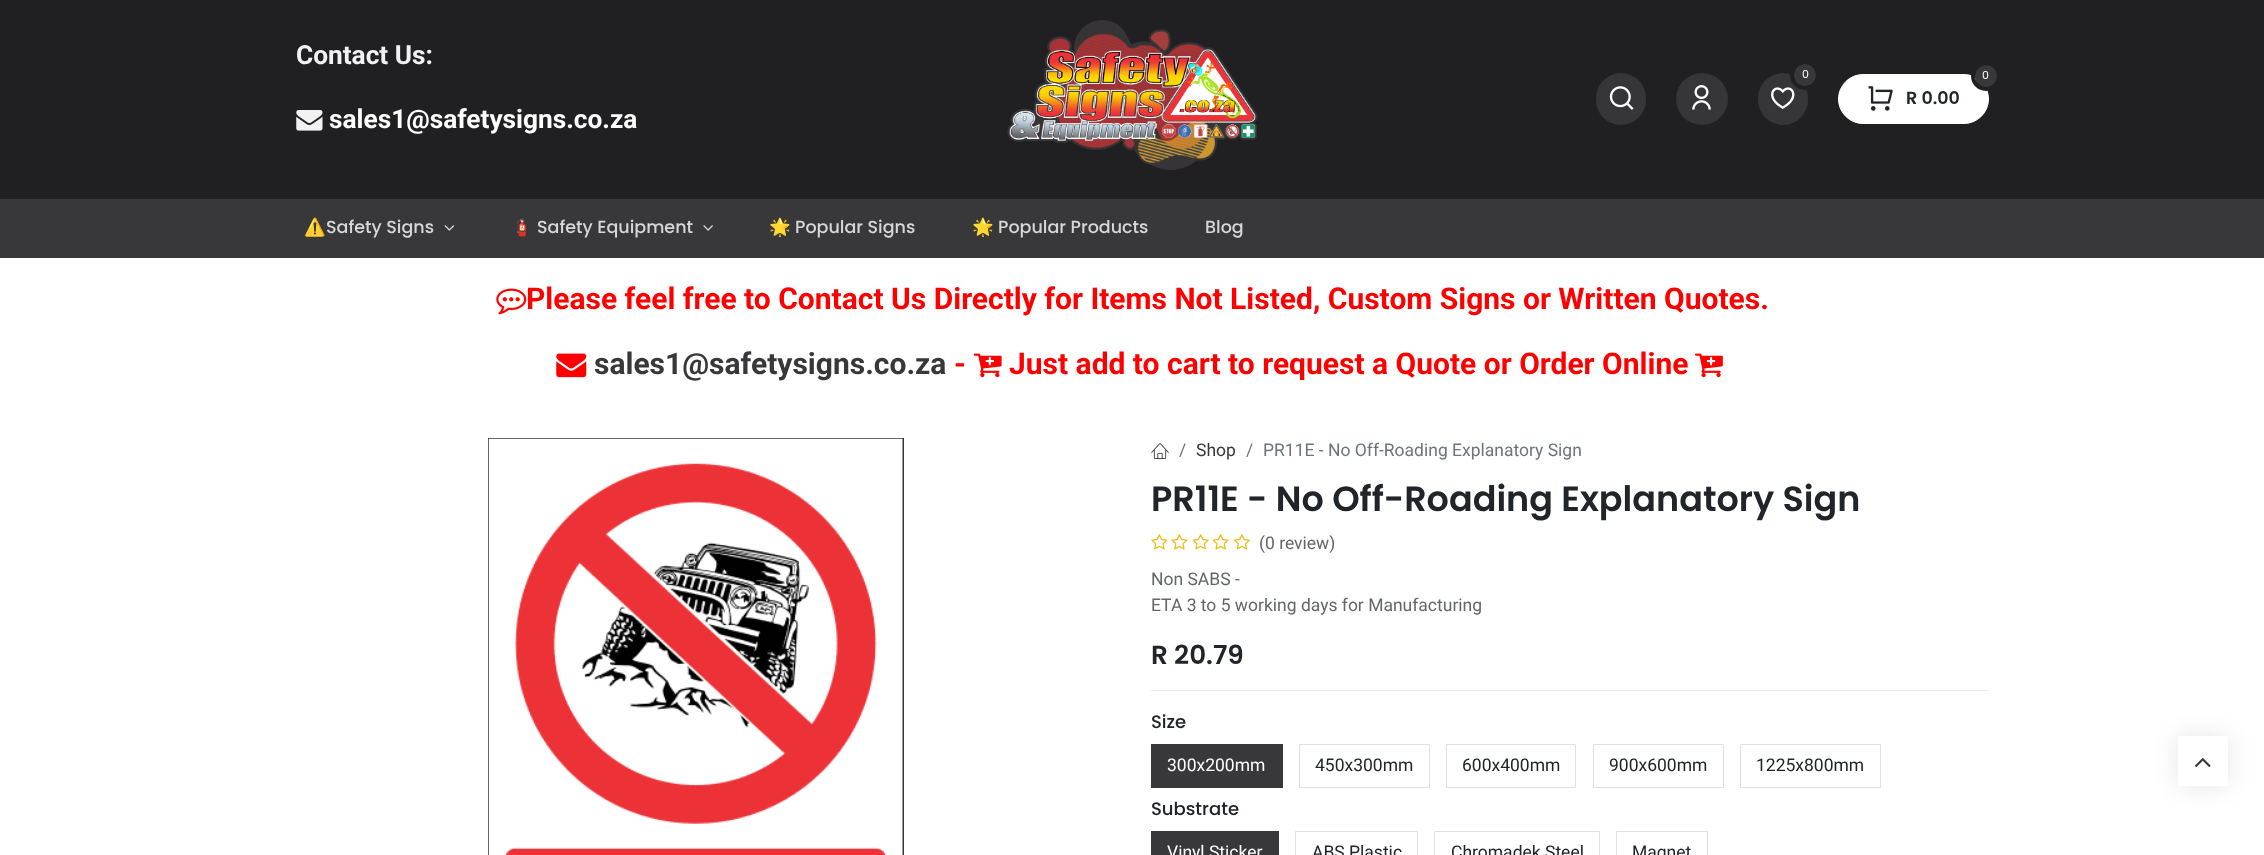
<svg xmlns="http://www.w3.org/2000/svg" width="2264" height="855">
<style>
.a{font:bold 26.25px Roboto;fill:#f2f2f3}
.b{font:bold 26.25px Roboto;fill:#fff}
.c{font:11px Poppins;fill:#fff}
.d{font:600 17.5px Poppins;fill:#212529}
.e{font:17.5px Noto Color Emoji;fill:#d7d7d8}
.f{font:500 17.5px Poppins;fill:#d7d7d8}
.g{font:bold 30px Roboto;fill:#f00}
.h{font:bold 30px Roboto;fill:#38383b}
.i{font:17.5px Roboto;fill:#6c757d}
.j{font:17.5px Roboto;fill:#38383b}
.k{font:600 35px Poppins;fill:#212529}
.l{font:17.5px Roboto;fill:#646669}
.m{font:600 26.25px Poppins;fill:#212529}
.n{font:500 18px Poppins;fill:#212529}
.o{font:17.5px Roboto;fill:#fff}
.p{font:17.5px Roboto;fill:#212529}
</style>
<rect width="100%" height="100%" fill="#fff"/>
<path fill="#202022" d="M0 0h2264v199H0z"/>
<image href="1.png" x="296" y="110" width="27" height="21"/>
<image href="2.png" x="1007" y="20" width="251" height="150"/>
<rect fill="#363638" x="1596" y="73" width="50" height="52" rx="25"/>
<image href="3.png" x="1609" y="86" width="25" height="24"/>
<circle fill="#363638" cx="1702" cy="99" r="26"/>
<image href="4.png" x="1692" y="85" width="19" height="25"/>
<rect fill="#363638" x="1758" y="73" width="50" height="52" rx="25"/>
<circle fill="#38383b" cx="1805" cy="75" r="11"/>
<image href="5.png" x="1771" y="87" width="24" height="22"/>
<rect fill="#fff" stroke="#fff" x="1838.5" y="74.5" width="150" height="49" rx="24.5"/>
<circle fill="#38383b" cx="1986.5" cy="76.5" r="11.5"/>
<image href="6.png" x="1868" y="86" width="25" height="25"/>
<path fill="#38383b" d="M0 199h2264v59H0z"/>
<image href="7.png" x="444" y="225" width="11" height="6"/>
<image href="8.png" x="703" y="225" width="10" height="6"/>
<image href="9.png" x="496" y="288" width="31" height="27"/>
<image href="10.png" x="556" y="353" width="31" height="25"/>
<image href="11.png" x="973" y="353" width="29" height="25"/>
<image href="12.png" x="1695" y="353" width="28" height="25"/>
<image href="13.png" x="488" y="438" width="416" height="417"/>
<image href="14.png" x="1151" y="443" width="18" height="16"/>
<image href="15.png" x="1151" y="534" width="17" height="16"/>
<image href="15.png" x="1171" y="534" width="17" height="16"/>
<image href="16.png" x="1192" y="534" width="17" height="16"/>
<image href="16.png" x="1212" y="534" width="17" height="16"/>
<image href="17.png" x="1233" y="534" width="17" height="16"/>
<path fill="#e9eaea" d="M1151 690h838v1H1151z"/>
<path fill="#38383b" d="M1151 744h132v44H1151z"/>
<path fill="none" stroke="#dee2e6" d="M1299.5 744.5h130v43H1299.5z"/>
<path fill="none" stroke="#dee2e6" d="M1446.5 744.5h129v43H1446.5z"/>
<path fill="none" stroke="#dee2e6" d="M1593.5 744.5h130v43H1593.5z"/>
<path fill="none" stroke="#dee2e6" d="M1740.5 744.5h140v43H1740.5z"/>
<path fill="#38383b" d="M1151 831h128v24H1151z"/>
<path fill="none" stroke="#dee2e6" d="M1295.5 831.5h122v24H1295.5z"/>
<path fill="none" stroke="#dee2e6" d="M1434.5 831.5h165v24H1434.5z"/>
<path fill="none" stroke="#dee2e6" d="M1616.5 831.5h91v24H1616.5z"/>
<path fill="#0000001a" filter="blur(12.5px)" d="M2178 736h50v50H2178z"/>
<path fill="#fff" d="M2178 736h50v50H2178z"/>
<image href="18.png" x="2195" y="758" width="16" height="9"/>
<text class="a" x="296" y="64">Contact Us:</text>
<text class="b" x="329" y="128">sales1@safetysigns.co.za</text>
<text class="c" x="1802" y="78">0</text>
<circle fill="none" stroke="#202022" stroke-width="4" cx="1805" cy="75" r="13"/>
<text class="c" x="1982" y="79">0</text>
<circle fill="none" stroke="#202022" stroke-width="4" cx="1986" cy="76" r="13"/>
<text class="d" x="1906" y="104">R 0.00</text>
<text class="e" x="304" y="233">⚠️</text>
<text class="f" x="326" y="233">Safety Signs</text>
<text class="e" x="511" y="233">🧯️</text>
<text class="f" x="537" y="233">Safety Equipment</text>
<text class="e" x="769" y="233">🌟</text>
<text class="f" x="795" y="233">Popular Signs</text>
<text class="e" x="972" y="233">🌟</text>
<text class="f" x="998" y="233">Popular Products</text>
<text class="f" x="1205" y="233">Blog</text>
<text class="g" x="526" y="309">Please feel free to Contact Us Directly for Items Not Listed, Custom Signs or Written Quotes.</text>
<text class="h" x="594" y="374">sales1@safetysigns.co.za</text>
<text class="g" x="954" y="374">-</text>
<text class="g" x="1009" y="374">Just add to cart to request a Quote or Order Online</text>
<text class="i" x="1179" y="456">/</text>
<text class="j" x="1196" y="456">Shop</text>
<text class="i" x="1246" y="456">/</text>
<text class="i" x="1263" y="456">PR11E - No Off-Roading Explanatory Sign</text>
<text class="k" x="1151" y="511">PR11E - No Off-Roading Explanatory Sign</text>
<text class="l" x="1259" y="549">(0 review)</text>
<text class="l" x="1151" y="585">Non SABS -</text>
<text class="l" x="1151" y="611">ETA 3 to 5 working days for Manufacturing</text>
<text class="m" x="1151" y="664">R 20.79</text>
<text class="n" x="1151" y="728">Size</text>
<text class="o" x="1167" y="771">300x200mm</text>
<text class="p" x="1315" y="771">450x300mm</text>
<text class="p" x="1462" y="771">600x400mm</text>
<text class="p" x="1609" y="771">900x600mm</text>
<text class="p" x="1756" y="771">1225x800mm</text>
<text class="n" x="1151" y="815">Substrate</text>
<text class="o" x="1167" y="858">Vinyl Sticker</text>
<text class="p" x="1312" y="858">ABS Plastic</text>
<text class="p" x="1451" y="858">Chromadek Steel</text>
<text class="p" x="1632" y="858">Magnet</text>
</svg>
